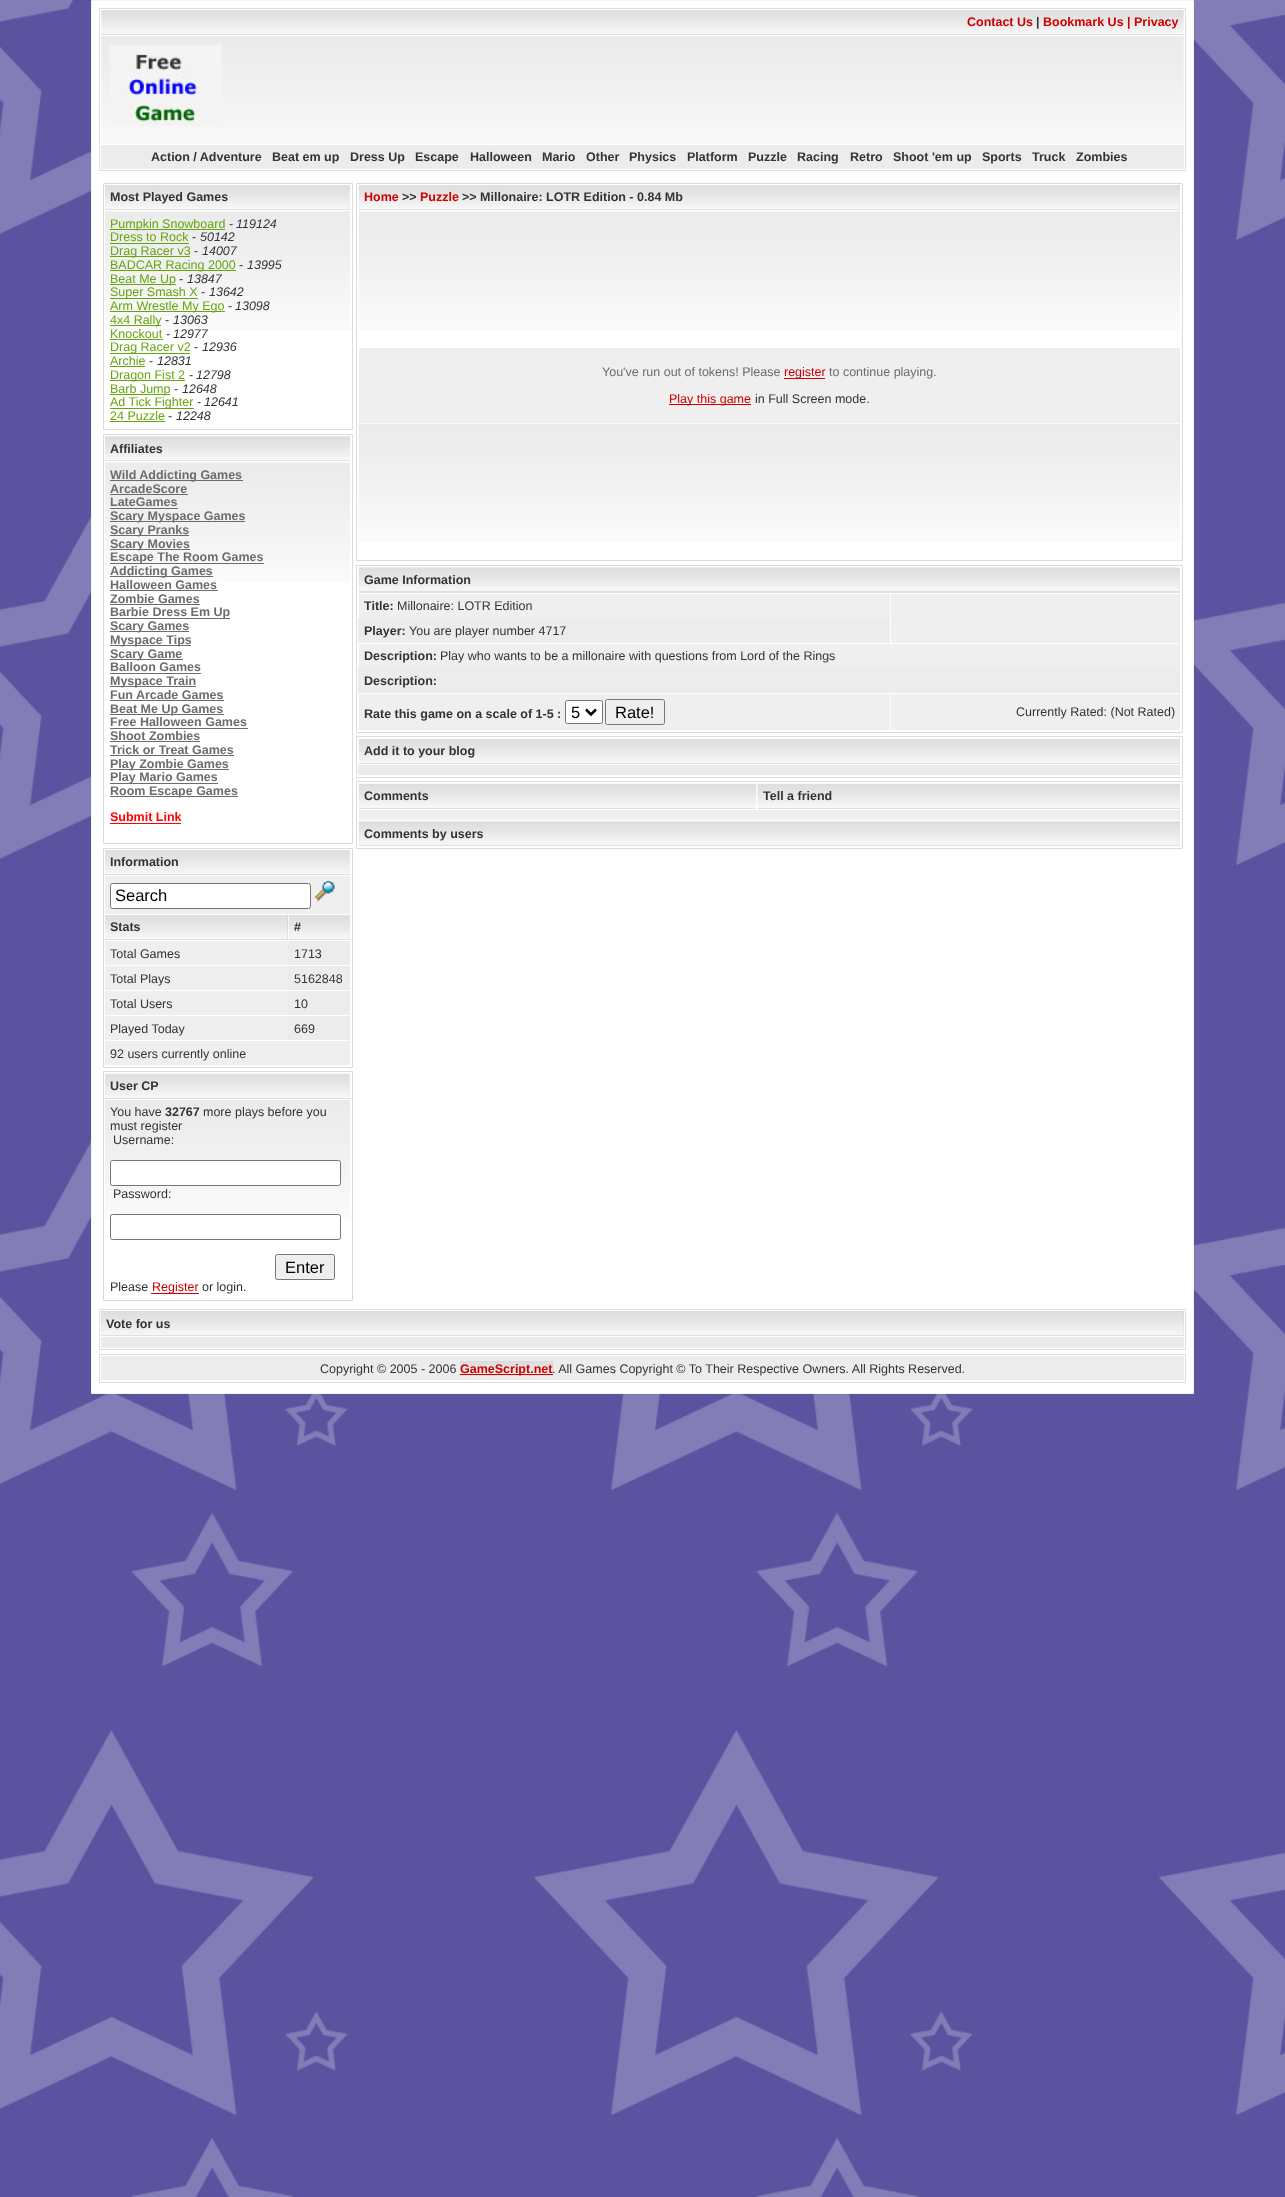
<svg xmlns="http://www.w3.org/2000/svg" width="1285" height="2197">
<style>
.a{font:bold 12.5px Liberation Sans;fill:#c00}
.b{font:bold 12.5px Liberation Sans;fill:#333}
.c{font:12.5px Liberation Sans;fill:#65a50e}
.d{font:12.5px Liberation Sans;fill:#333}
.e{font:italic 12.5px Liberation Sans;fill:#333}
.f{font:bold 12.5px Liberation Sans;fill:#6c6c6c}
.g{font:bold 12.5px Liberation Sans;fill:#f00}
.h{font:16.5px Liberation Sans;fill:#000}
.i{font:12.5px Liberation Sans;fill:#c00}
.j{font:12.5px Liberation Sans;fill:#6c6c6c}
</style>
<rect width="100%" height="100%" fill="#fff"/>
<image href="1.png" x="0" y="0" width="1285" height="2197"/>
<path fill="#fff" stroke="#f4f4f4" d="M91.5 0.5h1102v1393H91.5z"/>
<path fill="none" stroke="#dcdcdc" d="M99.5 8.5h1086v162H99.5z"/>
<image href="2.png" x="101" y="10" width="1083" height="24"/>
<path fill="#dfdfdf" d="M101 34h1083v1H101z"/>
<image href="3.png" x="101" y="36" width="1083" height="108"/>
<image href="4.png" x="110" y="45" width="112" height="81"/>
<path fill="#ececec" d="M101 145h1083v24H101z"/>
<path fill="none" stroke="#dcdcdc" d="M103.5 183.5h249v246H103.5z"/>
<image href="5.png" x="105" y="185" width="245" height="24"/>
<path fill="#dfdfdf" d="M105 209h245v1H105z"/>
<image href="6.png" x="105" y="211" width="245" height="119"/>
<path fill="#65a50e" d="M110 229h115v1H110z"/>
<path fill="#65a50e" d="M110 243h79v1H110z"/>
<path fill="#65a50e" d="M110 256h80v1H110z"/>
<path fill="#65a50e" d="M110 270h126v1H110z"/>
<path fill="#65a50e" d="M110 284h66v1H110z"/>
<path fill="#65a50e" d="M110 298h88v1H110z"/>
<path fill="#65a50e" d="M110 311h115v1H110z"/>
<path fill="#65a50e" d="M110 325h51v1H110z"/>
<path fill="#65a50e" d="M110 339h53v1H110z"/>
<path fill="#65a50e" d="M110 353h80v1H110z"/>
<path fill="#65a50e" d="M110 366h35v1H110z"/>
<path fill="#65a50e" d="M110 380h75v1H110z"/>
<path fill="#65a50e" d="M110 394h60v1H110z"/>
<path fill="#65a50e" d="M110 408h84v1H110z"/>
<path fill="#65a50e" d="M110 421h55v1H110z"/>
<path fill="none" stroke="#dcdcdc" d="M103.5 434.5h249v409H103.5z"/>
<image href="7.png" x="105" y="436" width="245" height="24"/>
<path fill="#dfdfdf" d="M105 460h245v1H105z"/>
<image href="8.png" x="105" y="462" width="245" height="119"/>
<path fill="#6c6c6c" d="M110 480h133v1H110z"/>
<path fill="#6c6c6c" d="M110 494h78v1H110z"/>
<path fill="#6c6c6c" d="M110 508h68v1H110z"/>
<path fill="#6c6c6c" d="M110 521h135v1H110z"/>
<path fill="#6c6c6c" d="M110 535h79v1H110z"/>
<path fill="#6c6c6c" d="M110 549h80v1H110z"/>
<path fill="#6c6c6c" d="M110 563h154v1H110z"/>
<path fill="#6c6c6c" d="M110 576h103v1H110z"/>
<path fill="#6c6c6c" d="M110 590h108v1H110z"/>
<path fill="#6c6c6c" d="M110 604h90v1H110z"/>
<path fill="#6c6c6c" d="M110 618h120v1H110z"/>
<path fill="#6c6c6c" d="M110 631h79v1H110z"/>
<path fill="#6c6c6c" d="M110 645h81v1H110z"/>
<path fill="#6c6c6c" d="M110 659h73v1H110z"/>
<path fill="#6c6c6c" d="M110 673h91v1H110z"/>
<path fill="#6c6c6c" d="M110 686h86v1H110z"/>
<path fill="#6c6c6c" d="M110 700h114v1H110z"/>
<path fill="#6c6c6c" d="M110 714h114v1H110z"/>
<path fill="#6c6c6c" d="M110 728h138v1H110z"/>
<path fill="#6c6c6c" d="M110 741h90v1H110z"/>
<path fill="#6c6c6c" d="M110 755h124v1H110z"/>
<path fill="#6c6c6c" d="M110 769h119v1H110z"/>
<path fill="#6c6c6c" d="M110 783h108v1H110z"/>
<path fill="#6c6c6c" d="M110 796h128v1H110z"/>
<path fill="#f00" d="M110 823h71v1H110z"/>
<path fill="none" stroke="#dcdcdc" d="M103.5 848.5h249v219H103.5z"/>
<image href="5.png" x="105" y="850" width="245" height="24"/>
<path fill="#dfdfdf" d="M105 874h245v1H105z"/>
<path fill="#efefef" d="M105 876h245v38H105z"/>
<rect fill="#fff" stroke="#767676" x="110.5" y="883.5" width="200" height="25" rx="2"/>
<image href="9.png" x="315" y="881" width="20" height="21"/>
<path fill="#ccc" d="M287 915h1v24H287z"/>
<image href="10.png" x="105" y="915" width="183" height="24"/>
<path fill="#dfdfdf" d="M105 939h183v1H105z"/>
<image href="11.png" x="288" y="915" width="62" height="25"/>
<path fill="#dfdfdf" d="M289 939h61v1H289z"/>
<path fill="#efefef" d="M105 941h183v24H105z"/>
<path fill="#ececec" d="M288 941h62v24H288z"/>
<path fill="#efefef" d="M105 966h183v24H105z"/>
<path fill="#ececec" d="M288 966h62v24H288z"/>
<path fill="#efefef" d="M105 991h183v24H105z"/>
<path fill="#ececec" d="M288 991h62v24H288z"/>
<path fill="#efefef" d="M105 1016h183v24H105z"/>
<path fill="#ececec" d="M288 1016h62v24H288z"/>
<path fill="#efefef" d="M105 1041h245v24H105z"/>
<path fill="none" stroke="#dcdcdc" d="M103.5 1071.5h249v229H103.5z"/>
<image href="12.png" x="105" y="1073" width="245" height="25"/>
<path fill="#dfdfdf" d="M105 1098h245v1H105z"/>
<image href="13.png" x="105" y="1100" width="245" height="119"/>
<rect fill="#fff" stroke="#767676" x="110.5" y="1160.5" width="230" height="25" rx="2"/>
<rect fill="#fff" stroke="#767676" x="110.5" y="1214.5" width="230" height="25" rx="2"/>
<rect fill="#efefef" stroke="#767676" x="275.5" y="1254.5" width="59" height="25" rx="2"/>
<path fill="#c00" d="M151 1293h48v1H151z"/>
<path fill="none" stroke="#dcdcdc" d="M356.5 183.5h826v377H356.5z"/>
<image href="14.png" x="358" y="185" width="822" height="25"/>
<path fill="#dfdfdf" d="M359 209h821v1H359z"/>
<image href="15.png" x="358" y="211" width="822" height="119"/>
<path fill="#efefef" d="M359 348h821v75H359z"/>
<path fill="#c00" d="M784 378h41v1H784z"/>
<path fill="#c00" d="M669 404h82v1H669z"/>
<image href="16.png" x="358" y="423" width="822" height="119"/>
<path fill="none" stroke="#dcdcdc" d="M356.5 565.5h826v167H356.5z"/>
<path fill="#ccc" d="M359 592h821v1H359z"/>
<image href="17.png" x="358" y="567" width="822" height="26"/>
<path fill="#dfdfdf" d="M359 591h821v1H359z"/>
<path fill="#efefef" d="M359 594h531v24H359z"/>
<path fill="#efefef" d="M891 594h289v49H891z"/>
<path fill="#ececec" d="M358 618h532v25H358z"/>
<path fill="#efefef" d="M359 644h821v24H359z"/>
<path fill="#ececec" d="M358 668h822v25H358z"/>
<path fill="#efefef" d="M359 694h531v36H359z"/>
<rect fill="#fff" stroke="#767676" x="565.5" y="700.5" width="37" height="23" rx="2"/>
<path fill="none" stroke="#000" stroke-width="2.5" d="M586 709.5l5 5l5-5"/>
<rect fill="none" stroke="#767676" x="605.5" y="699.5" width="59" height="25" rx="2"/>
<path fill="#efefef" d="M891 694h289v36H891z"/>
<path fill="none" stroke="#dcdcdc" d="M356.5 736.5h826v41H356.5z"/>
<image href="18.png" x="358" y="738" width="822" height="26"/>
<path fill="#dfdfdf" d="M359 763h821v1H359z"/>
<path fill="#ebebeb" d="M358 765h822v10H358z"/>
<path fill="none" stroke="#dcdcdc" d="M356.5 781.5h826v67H356.5z"/>
<image href="19.png" x="358" y="783" width="399" height="26"/>
<path fill="#dfdfdf" d="M359 808h397v1H359z"/>
<image href="20.png" x="757" y="783" width="423" height="26"/>
<path fill="#dfdfdf" d="M758 808h422v1H758z"/>
<path fill="#efefef" d="M359 810h821v10H359z"/>
<image href="21.png" x="358" y="821" width="822" height="25"/>
<path fill="#dfdfdf" d="M359 845h821v1H359z"/>
<path fill="none" stroke="#dcdcdc" d="M99.5 1309.5h1086v40H99.5z"/>
<path fill="#ccc" d="M101 1311h1083v24H101z"/>
<image href="22.png" x="101" y="1311" width="1083" height="24"/>
<path fill="#dfdfdf" d="M101 1335h1083v1H101z"/>
<path fill="#ebebeb" d="M101 1337h1083v11H101z"/>
<path fill="none" stroke="#dcdcdc" d="M99.5 1354.5h1086v28H99.5z"/>
<path fill="#ececec" d="M101 1356h1083v24H101z"/>
<path fill="#ccc" d="M460 1361h93v13H460z"/>
<image href="23.png" x="460" y="1361" width="93" height="13"/>
<path fill="#dfdfdf" d="M460 1375h93v1H460z"/>
<path fill="#c00" d="M460 1374h93v1H460z"/>
<text class="a" x="967" y="26">Contact Us</text>
<text class="b" x="1036" y="26">|</text>
<text class="a" x="1043" y="26">Bookmark Us | Privacy</text>
<text class="b" x="151" y="161">Action / Adventure</text>
<text class="b" x="272" y="161">Beat em up</text>
<text class="b" x="350" y="161">Dress Up</text>
<text class="b" x="415" y="161">Escape</text>
<text class="b" x="470" y="161">Halloween</text>
<text class="b" x="542" y="161">Mario</text>
<text class="b" x="586" y="161">Other</text>
<text class="b" x="629" y="161">Physics</text>
<text class="b" x="687" y="161">Platform</text>
<text class="b" x="748" y="161">Puzzle</text>
<text class="b" x="797" y="161">Racing</text>
<text class="b" x="850" y="161">Retro</text>
<text class="b" x="893" y="161">Shoot 'em up</text>
<text class="b" x="982" y="161">Sports</text>
<text class="b" x="1032" y="161">Truck</text>
<text class="b" x="1076" y="161">Zombies</text>
<text class="b" x="110" y="201">Most Played Games</text>
<text class="c" x="110" y="228">Pumpkin Snowboard</text>
<text class="d" x="229" y="228">-</text>
<text class="e" x="236" y="228">119124</text>
<text class="c" x="110" y="241">Dress to Rock</text>
<text class="d" x="192" y="241">-</text>
<text class="e" x="200" y="241">50142</text>
<text class="c" x="110" y="255">Drag Racer v3</text>
<text class="d" x="194" y="255">-</text>
<text class="e" x="202" y="255">14007</text>
<text class="c" x="110" y="269">BADCAR Racing 2000</text>
<text class="d" x="239" y="269">-</text>
<text class="e" x="247" y="269">13995</text>
<text class="c" x="110" y="283">Beat Me Up</text>
<text class="d" x="179" y="283">-</text>
<text class="e" x="187" y="283">13847</text>
<text class="c" x="110" y="296">Super Smash X</text>
<text class="d" x="201" y="296">-</text>
<text class="e" x="209" y="296">13642</text>
<text class="c" x="110" y="310">Arm Wrestle My Ego</text>
<text class="d" x="228" y="310">-</text>
<text class="e" x="235" y="310">13098</text>
<text class="c" x="110" y="324">4x4 Rally</text>
<text class="d" x="165" y="324">-</text>
<text class="e" x="173" y="324">13063</text>
<text class="c" x="110" y="338">Knockout</text>
<text class="d" x="166" y="338">-</text>
<text class="e" x="173" y="338">12977</text>
<text class="c" x="110" y="351">Drag Racer v2</text>
<text class="d" x="194" y="351">-</text>
<text class="e" x="202" y="351">12936</text>
<text class="c" x="110" y="365">Archie</text>
<text class="d" x="149" y="365">-</text>
<text class="e" x="157" y="365">12831</text>
<text class="c" x="110" y="379">Dragon Fist 2</text>
<text class="d" x="189" y="379">-</text>
<text class="e" x="196" y="379">12798</text>
<text class="c" x="110" y="393">Barb Jump</text>
<text class="d" x="174" y="393">-</text>
<text class="e" x="182" y="393">12648</text>
<text class="c" x="110" y="406">Ad Tick Fighter</text>
<text class="d" x="197" y="406">-</text>
<text class="e" x="204" y="406">12641</text>
<text class="c" x="110" y="420">24 Puzzle</text>
<text class="d" x="168" y="420">-</text>
<text class="e" x="176" y="420">12248</text>
<text class="b" x="110" y="453">Affiliates</text>
<text class="f" x="110" y="479">Wild Addicting Games</text>
<text class="f" x="110" y="493">ArcadeScore</text>
<text class="f" x="110" y="506">LateGames</text>
<text class="f" x="110" y="520">Scary Myspace Games</text>
<text class="f" x="110" y="534">Scary Pranks</text>
<text class="f" x="110" y="548">Scary Movies</text>
<text class="f" x="110" y="561">Escape The Room Games</text>
<text class="f" x="110" y="575">Addicting Games</text>
<text class="f" x="110" y="589">Halloween Games</text>
<text class="f" x="110" y="603">Zombie Games</text>
<text class="f" x="110" y="616">Barbie Dress Em Up</text>
<text class="f" x="110" y="630">Scary Games</text>
<text class="f" x="110" y="644">Myspace Tips</text>
<text class="f" x="110" y="658">Scary Game</text>
<text class="f" x="110" y="671">Balloon Games</text>
<text class="f" x="110" y="685">Myspace Train</text>
<text class="f" x="110" y="699">Fun Arcade Games</text>
<text class="f" x="110" y="713">Beat Me Up Games</text>
<text class="f" x="110" y="726">Free Halloween Games</text>
<text class="f" x="110" y="740">Shoot Zombies</text>
<text class="f" x="110" y="754">Trick or Treat Games</text>
<text class="f" x="110" y="768">Play Zombie Games</text>
<text class="f" x="110" y="781">Play Mario Games</text>
<text class="f" x="110" y="795">Room Escape Games</text>
<text class="g" x="110" y="821">Submit Link</text>
<text class="b" x="110" y="866">Information</text>
<text class="h" x="115" y="901">Search</text>
<text class="b" x="110" y="931">Stats</text>
<text class="b" x="294" y="931">#</text>
<text class="d" x="110" y="958">Total Games</text>
<text class="d" x="294" y="958">1713</text>
<text class="d" x="110" y="983">Total Plays</text>
<text class="d" x="294" y="983">5162848</text>
<text class="d" x="110" y="1008">Total Users</text>
<text class="d" x="294" y="1008">10</text>
<text class="d" x="110" y="1033">Played Today</text>
<text class="d" x="294" y="1033">669</text>
<text class="d" x="110" y="1058">92 users currently online</text>
<text class="b" x="110" y="1090">User CP</text>
<text class="d" x="110" y="1116">You have</text>
<text class="b" x="165" y="1116">32767</text>
<text class="d" x="203" y="1116">more plays before you</text>
<text class="d" x="110" y="1130">must register</text>
<text class="d" x="113" y="1144">Username:</text>
<text class="d" x="113" y="1198">Password:</text>
<text class="h" x="285" y="1273">Enter</text>
<text class="d" x="110" y="1291">Please</text>
<text class="i" x="152" y="1291">Register</text>
<text class="d" x="202" y="1291">or login.</text>
<text class="a" x="364" y="201">Home</text>
<text class="b" x="402" y="201">&gt;&gt;</text>
<text class="a" x="420" y="201">Puzzle</text>
<text class="b" x="462" y="201">&gt;&gt; Millonaire: LOTR Edition - 0.84 Mb</text>
<text class="j" x="602" y="376">You've run out of tokens! Please</text>
<text class="i" x="784" y="376">register</text>
<text class="j" x="829" y="376">to continue playing.</text>
<text class="i" x="669" y="403">Play this game</text>
<text class="d" x="755" y="403">in Full Screen mode.</text>
<text class="b" x="364" y="584">Game Information</text>
<text class="b" x="364" y="610">Title:</text>
<text class="d" x="397" y="610">Millonaire: LOTR Edition</text>
<text class="b" x="364" y="635">Player:</text>
<text class="d" x="409" y="635">You are player number 4717</text>
<text class="b" x="364" y="660">Description:</text>
<text class="d" x="440" y="660">Play who wants to be a millonaire with questions from Lord of the Rings</text>
<text class="b" x="364" y="685">Description:</text>
<text class="b" x="364" y="718">Rate this game on a scale of 1-5 :</text>
<text class="h" x="571" y="718">5</text>
<text class="h" x="615" y="718">Rate!</text>
<text class="d" x="1016" y="716">Currently Rated: (Not Rated)</text>
<text class="b" x="364" y="755">Add it to your blog</text>
<text class="b" x="364" y="800">Comments</text>
<text class="b" x="763" y="800">Tell a friend</text>
<text class="b" x="364" y="838">Comments by users</text>
<text class="b" x="106" y="1328">Vote for us</text>
<text class="d" x="320" y="1373">Copyright © 2005 - 2006</text>
<text class="a" x="460" y="1373">GameScript.net</text>
<text class="d" x="552" y="1373">. All Games Copyright © To Their Respective Owners. All Rights Reserved.</text>
</svg>
